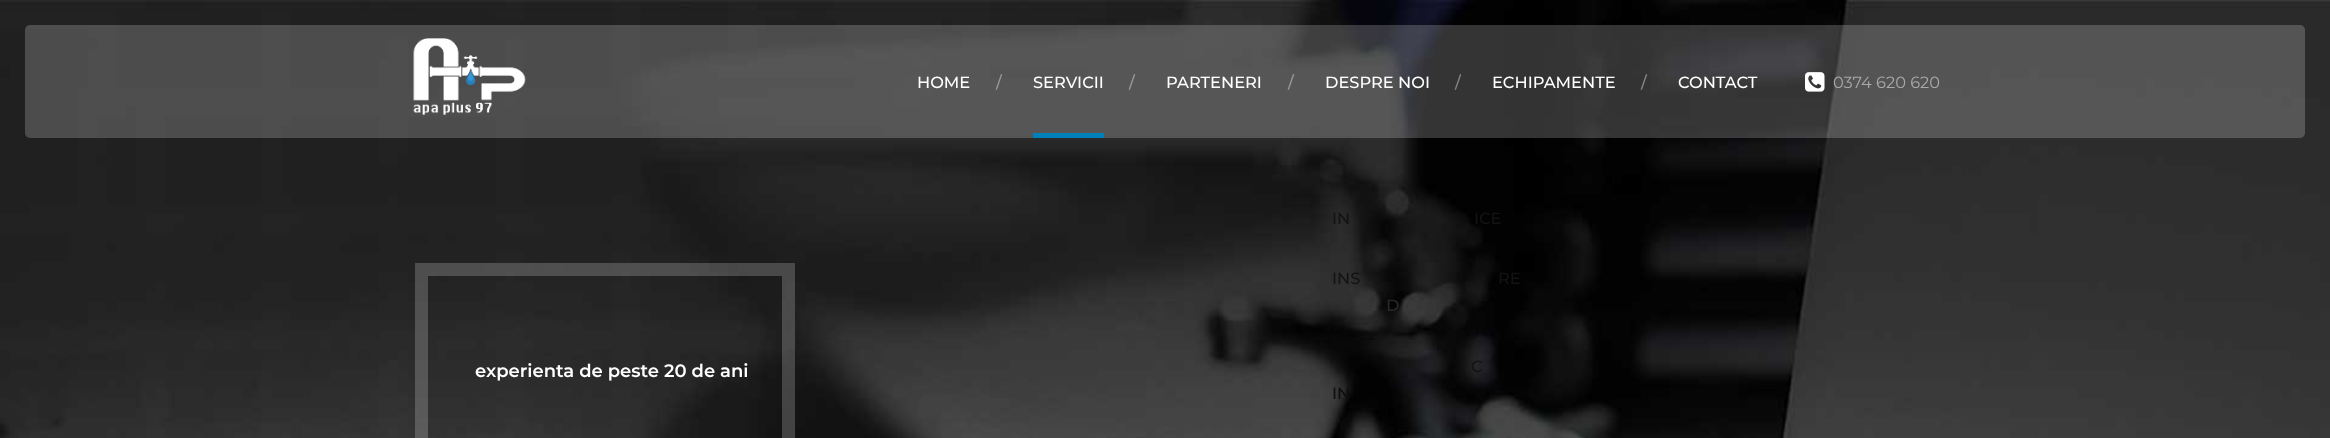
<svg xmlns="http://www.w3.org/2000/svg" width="2330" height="438">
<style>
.a{font:600 18px Montserrat;fill:#fff}
.b{font:500 16.25px Montserrat;fill:#fff}
.c{font:500 16.25px Montserrat;fill:#999}
.d{font:500 16.25px Montserrat;fill:#131313}
.e{font:500 16.25px Montserrat;fill:#292929}
.f{font:500 16.25px Montserrat;fill:#0d0d0e}
.g{font:500 16.25px Montserrat;fill:#868686}
.h{font:16.25px Montserrat;fill:#a9a9a9}
</style>
<rect width="100%" height="100%" fill="#fff"/>
<image href="1.png" x="0" y="0" width="2330" height="438"/>
<path fill="none" stroke="#ffffff33" stroke-width="13" d="M421.5 269.5h367v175H421.5z"/>
<rect fill="#ffffff33" x="25" y="25" width="2280" height="113" rx="5"/>
<image href="2.png" x="413" y="38" width="113" height="77"/>
<path fill="#0080ba" d="M1033 133h71v5H1033z"/>
<image href="3.png" x="1805" y="72" width="20" height="20"/>
<text class="a" x="475" y="377">experienta de peste 20 de ani</text>
<text class="b" x="917" y="88">HOME</text>
<text class="c" x="996" y="88">/</text>
<text class="b" x="1033" y="88">SERVICII</text>
<text class="c" x="1129" y="88">/</text>
<text class="d" x="1332" y="224">IN</text>
<text class="d" x="1474" y="224">ICE</text>
<text class="d" x="1332" y="284">INS</text>
<text class="d" x="1498" y="284">RE</text>
<text class="e" x="1386" y="311">D</text>
<text class="d" x="1471" y="372">C</text>
<text class="f" x="1332" y="399">IN</text>
<text class="b" x="1166" y="88">PARTENERI</text>
<text class="c" x="1288" y="88">/</text>
<text class="b" x="1325" y="88">DESPRE NOI</text>
<text class="g" x="1455" y="88">/</text>
<text class="b" x="1492" y="88">ECHIPAMENTE</text>
<text class="g" x="1641" y="88">/</text>
<text class="b" x="1678" y="88">CONTACT</text>
<text class="h" x="1833" y="88">0374 620 620</text>
</svg>
